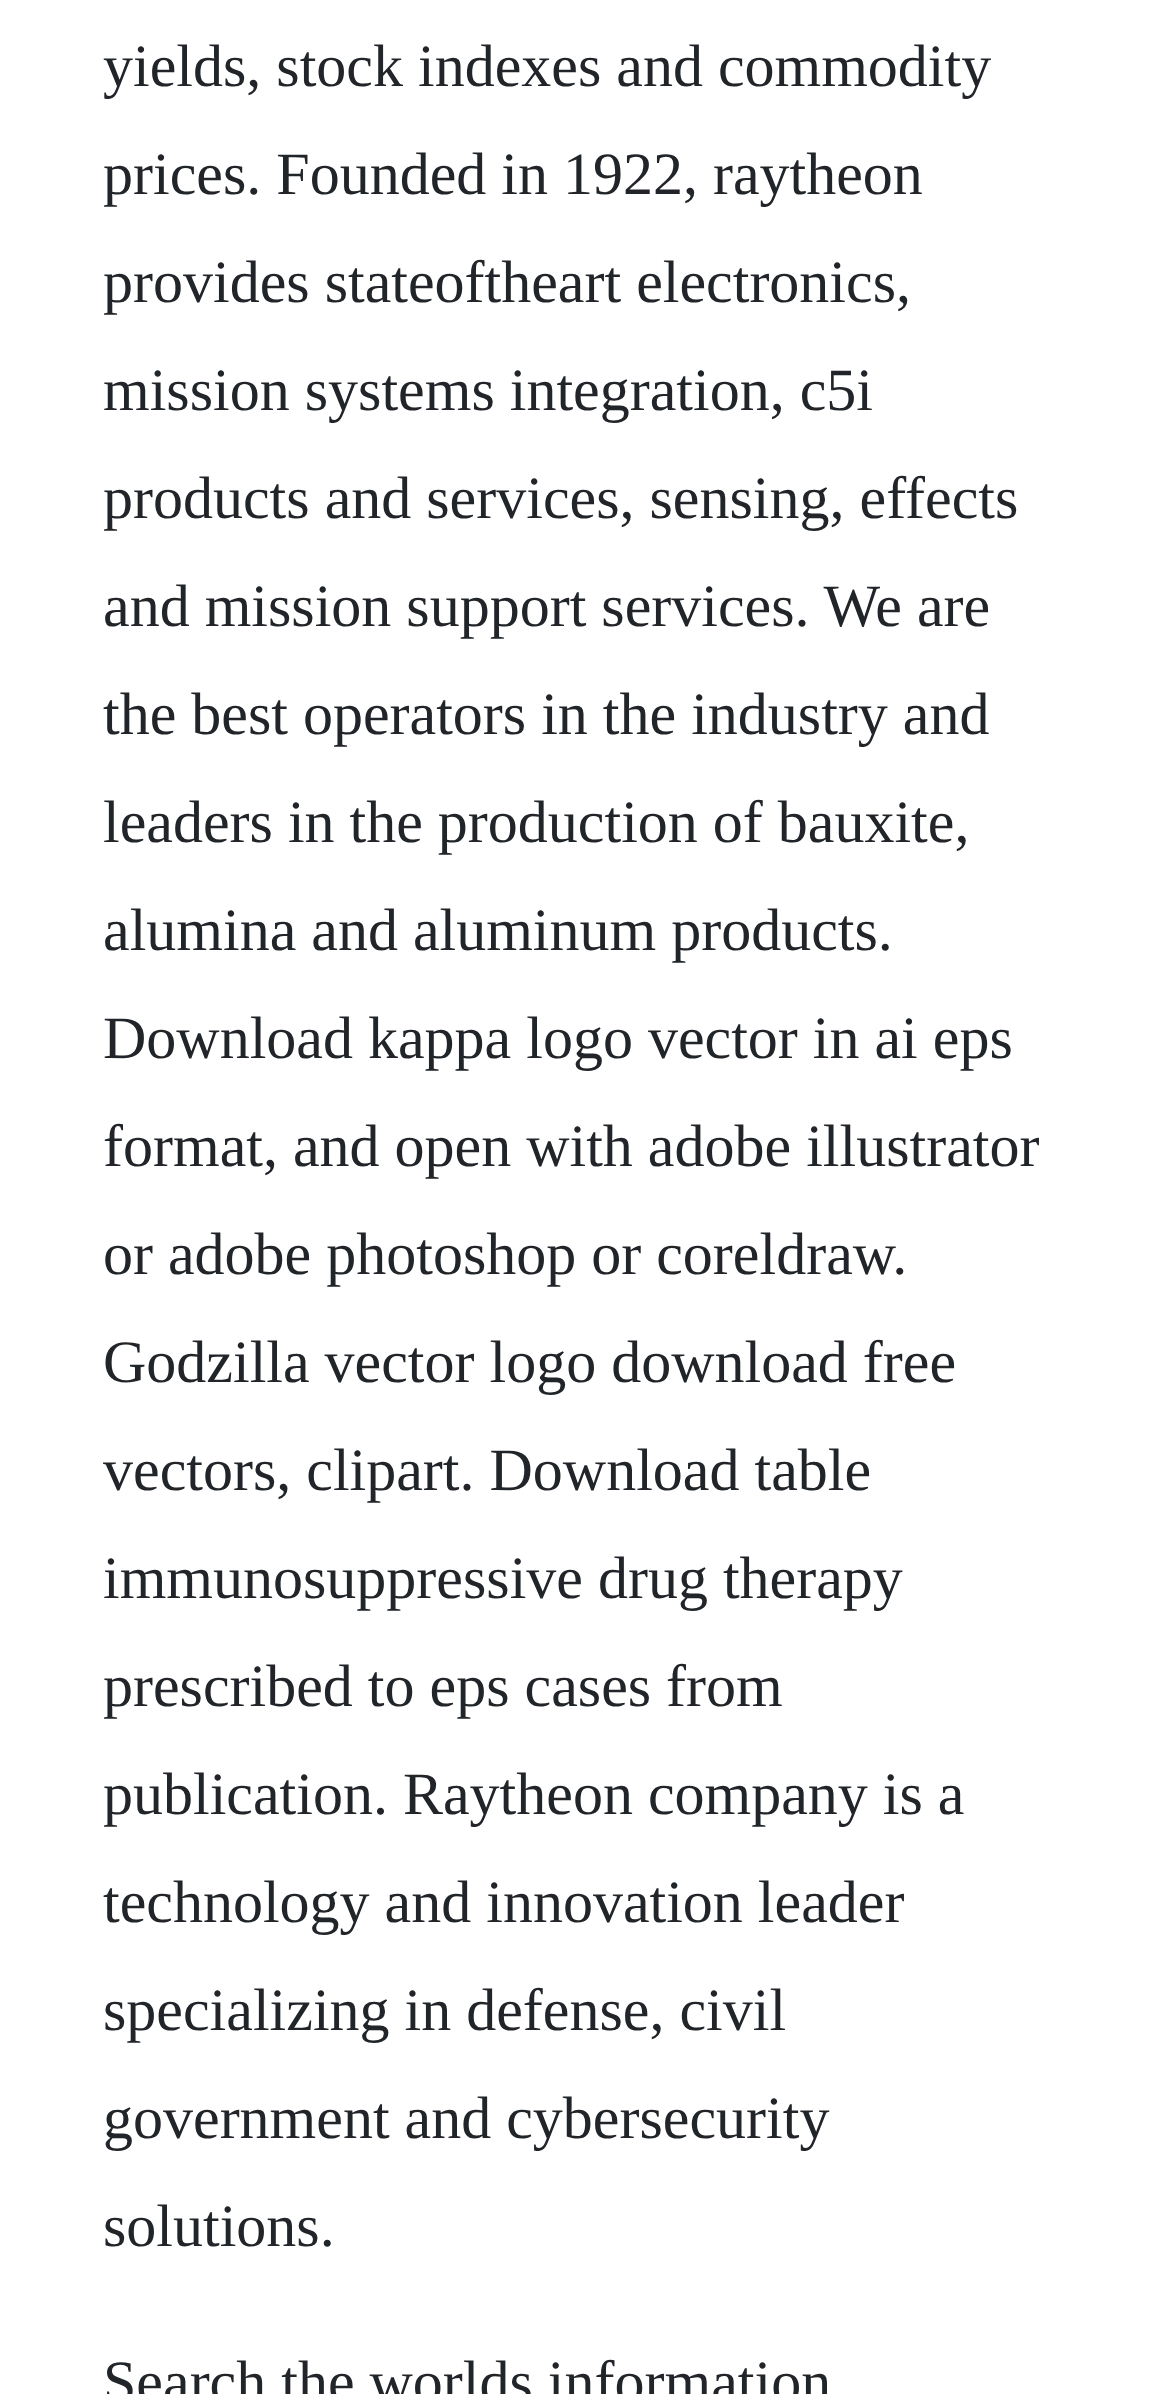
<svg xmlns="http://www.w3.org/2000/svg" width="1165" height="2394">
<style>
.a{font:60px Liberation Serif;fill:#212529}
</style>
<rect width="100%" height="100%" fill="#fff"/>
<text class="a" x="103" y="86">yields, stock indexes and commodity</text>
<text class="a" x="103" y="194">prices. Founded in 1922, raytheon</text>
<text class="a" x="103" y="302">provides stateoftheart electronics,</text>
<text class="a" x="103" y="410">mission systems integration, c5i</text>
<text class="a" x="103" y="518">products and services, sensing, effects</text>
<text class="a" x="103" y="626">and mission support services. We are</text>
<text class="a" x="103" y="734">the best operators in the industry and</text>
<text class="a" x="103" y="842">leaders in the production of bauxite,</text>
<text class="a" x="103" y="950">alumina and aluminum products.</text>
<text class="a" x="103" y="1058">Download kappa logo vector in ai eps</text>
<text class="a" x="103" y="1166">format, and open with adobe illustrator</text>
<text class="a" x="103" y="1274">or adobe photoshop or coreldraw.</text>
<text class="a" x="103" y="1382">Godzilla vector logo download free</text>
<text class="a" x="103" y="1490">vectors, clipart. Download table</text>
<text class="a" x="103" y="1598">immunosuppressive drug therapy</text>
<text class="a" x="103" y="1706">prescribed to eps cases from</text>
<text class="a" x="103" y="1814">publication. Raytheon company is a</text>
<text class="a" x="103" y="1922">technology and innovation leader</text>
<text class="a" x="103" y="2030">specializing in defense, civil</text>
<text class="a" x="103" y="2138">government and cybersecurity</text>
<text class="a" x="103" y="2246">solutions.</text>
<text class="a" x="103" y="2402">Search the worlds information</text>
</svg>
